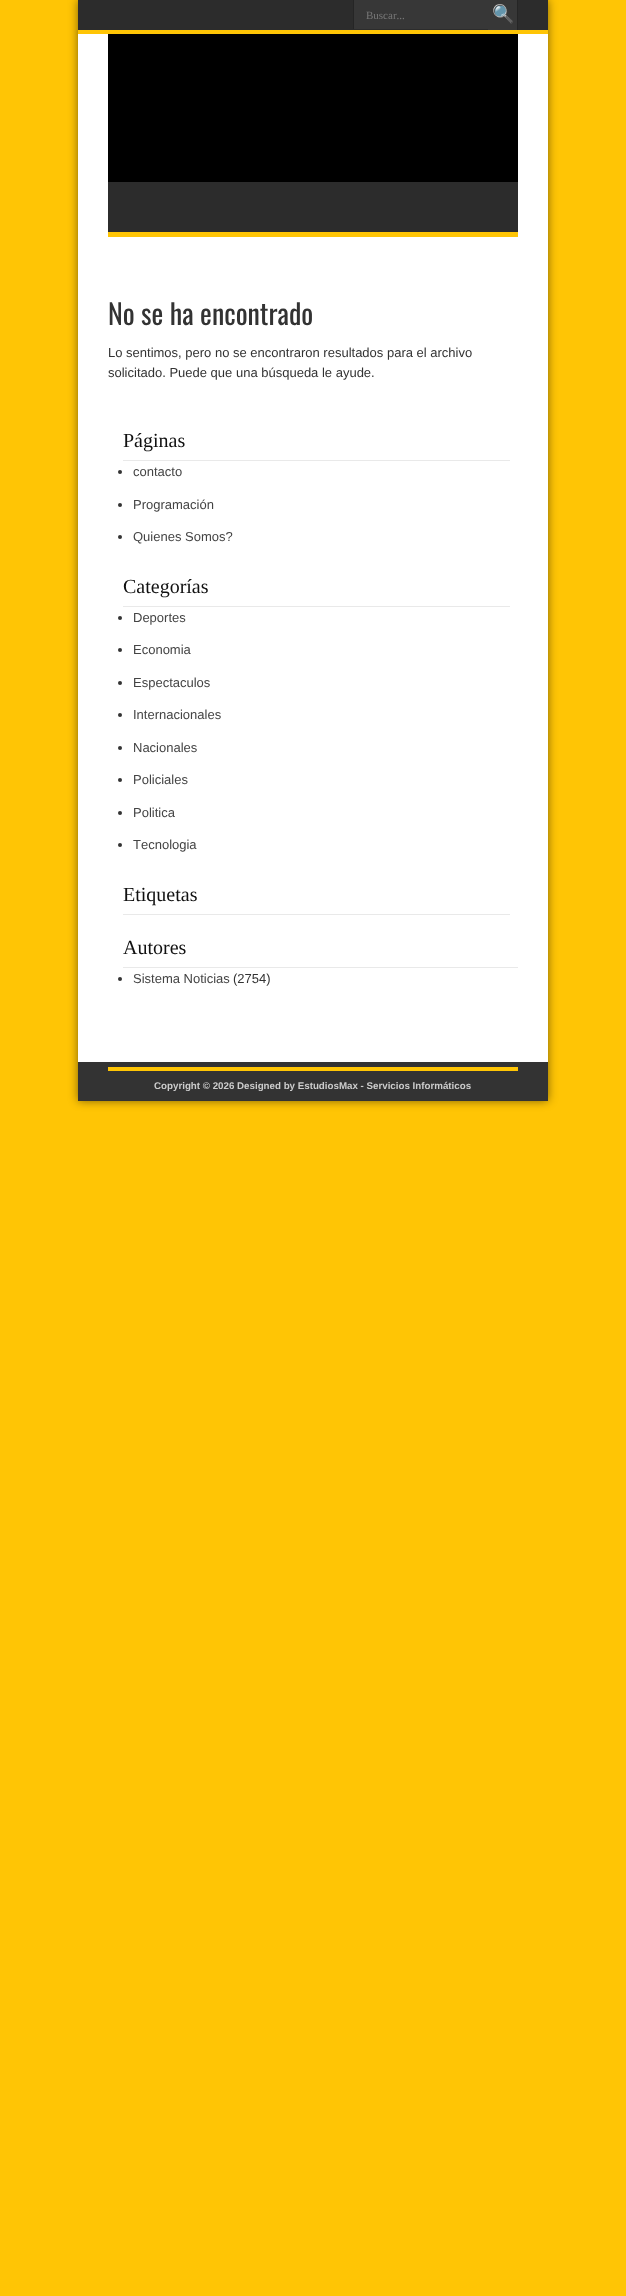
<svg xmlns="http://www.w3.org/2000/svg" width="626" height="2296">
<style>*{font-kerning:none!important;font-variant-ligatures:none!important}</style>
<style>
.a{font:11px Liberation Serif;fill:#787878}
.b{font:18px Noto Color Emoji;fill:#c0c0c0}
.c{font:28px Oswald;fill:#333}
.d{font:13px Liberation Sans;fill:#333}
.e{font:20px Liberation Serif;fill:#111}
.f{font:13px Liberation Sans;fill:#444}
.g{font:bold 9.75px Liberation Sans;fill:#ccc}
</style>
<rect width="100%" height="100%" fill="#ffc505"/>
<path fill="#00000080" filter="blur(5px)" d="M78 0h470v1101H78z"/>
<path fill="#fff" d="M78 34h470v1028H78z"/>
<path fill="#2c2c2c" d="M78 0h470v30H78z"/>
<path fill="#ffc505" d="M78 30h470v4H78z"/>
<path fill="#373737" d="M354 0h134v29H354z"/>
<path fill="#252525" d="M353 0h1v29H353z"/>
<path fill="#373737" d="M488 0h29v30H488z"/>
<path fill="#252525" d="M517 0h1v30H517z"/>
<path fill="#000" d="M108 34h410v148H108z"/>
<path fill="#2c2c2c" d="M108 182h410v50H108z"/>
<path fill="#ffc505" d="M108 232h410v5H108z"/>
<path fill="#e9e9e9" d="M123 460h387v1H123z"/>
<circle fill="#333" cx="120" cy="472" r="2"/>
<circle fill="#333" cx="120" cy="505" r="2"/>
<circle fill="#333" cx="120" cy="537" r="2"/>
<path fill="#e9e9e9" d="M123 606h387v1H123z"/>
<circle fill="#333" cx="120" cy="618" r="2"/>
<circle fill="#333" cx="120" cy="650" r="2"/>
<circle fill="#333" cx="120" cy="683" r="2"/>
<circle fill="#333" cx="120" cy="715" r="2"/>
<circle fill="#333" cx="120" cy="748" r="2"/>
<circle fill="#333" cx="120" cy="780" r="2"/>
<circle fill="#333" cx="120" cy="813" r="2"/>
<circle fill="#333" cx="120" cy="845" r="2"/>
<path fill="#e9e9e9" d="M123 914h387v1H123z"/>
<path fill="#e9e9e9" d="M123 967h395v1H123z"/>
<circle fill="#333" cx="120" cy="979" r="2"/>
<path fill="#333" d="M78 1062h470v39H78z"/>
<path fill="#ffc505" d="M108 1067h410v4H108z"/>
<text class="a" x="366" y="19">Buscar...</text>
<text class="b" x="492" y="20">🔍</text>
<text class="c" x="108" y="325">No se ha encontrado</text>
<text class="d" x="108" y="357">Lo sentimos, pero no se encontraron resultados para el archivo</text>
<text class="d" x="108" y="377">solicitado. Puede que una búsqueda le ayude.</text>
<text class="e" x="123" y="447">Páginas</text>
<text class="f" x="133" y="476">contacto</text>
<text class="f" x="133" y="509">Programación</text>
<text class="f" x="133" y="541">Quienes Somos?</text>
<text class="e" x="123" y="593">Categorías</text>
<text class="f" x="133" y="622">Deportes</text>
<text class="f" x="133" y="654">Economia</text>
<text class="f" x="133" y="687">Espectaculos</text>
<text class="f" x="133" y="719">Internacionales</text>
<text class="f" x="133" y="752">Nacionales</text>
<text class="f" x="133" y="784">Policiales</text>
<text class="f" x="133" y="817">Politica</text>
<text class="f" x="133" y="849">Tecnologia</text>
<text class="e" x="123" y="901">Etiquetas</text>
<text class="e" x="123" y="954">Autores</text>
<text class="f" x="133" y="983">Sistema Noticias</text>
<text class="d" x="233" y="983">(2754)</text>
<text class="g" x="154" y="1089">Copyright © 2026 Designed by EstudiosMax - Servicios Informáticos</text>
</svg>
